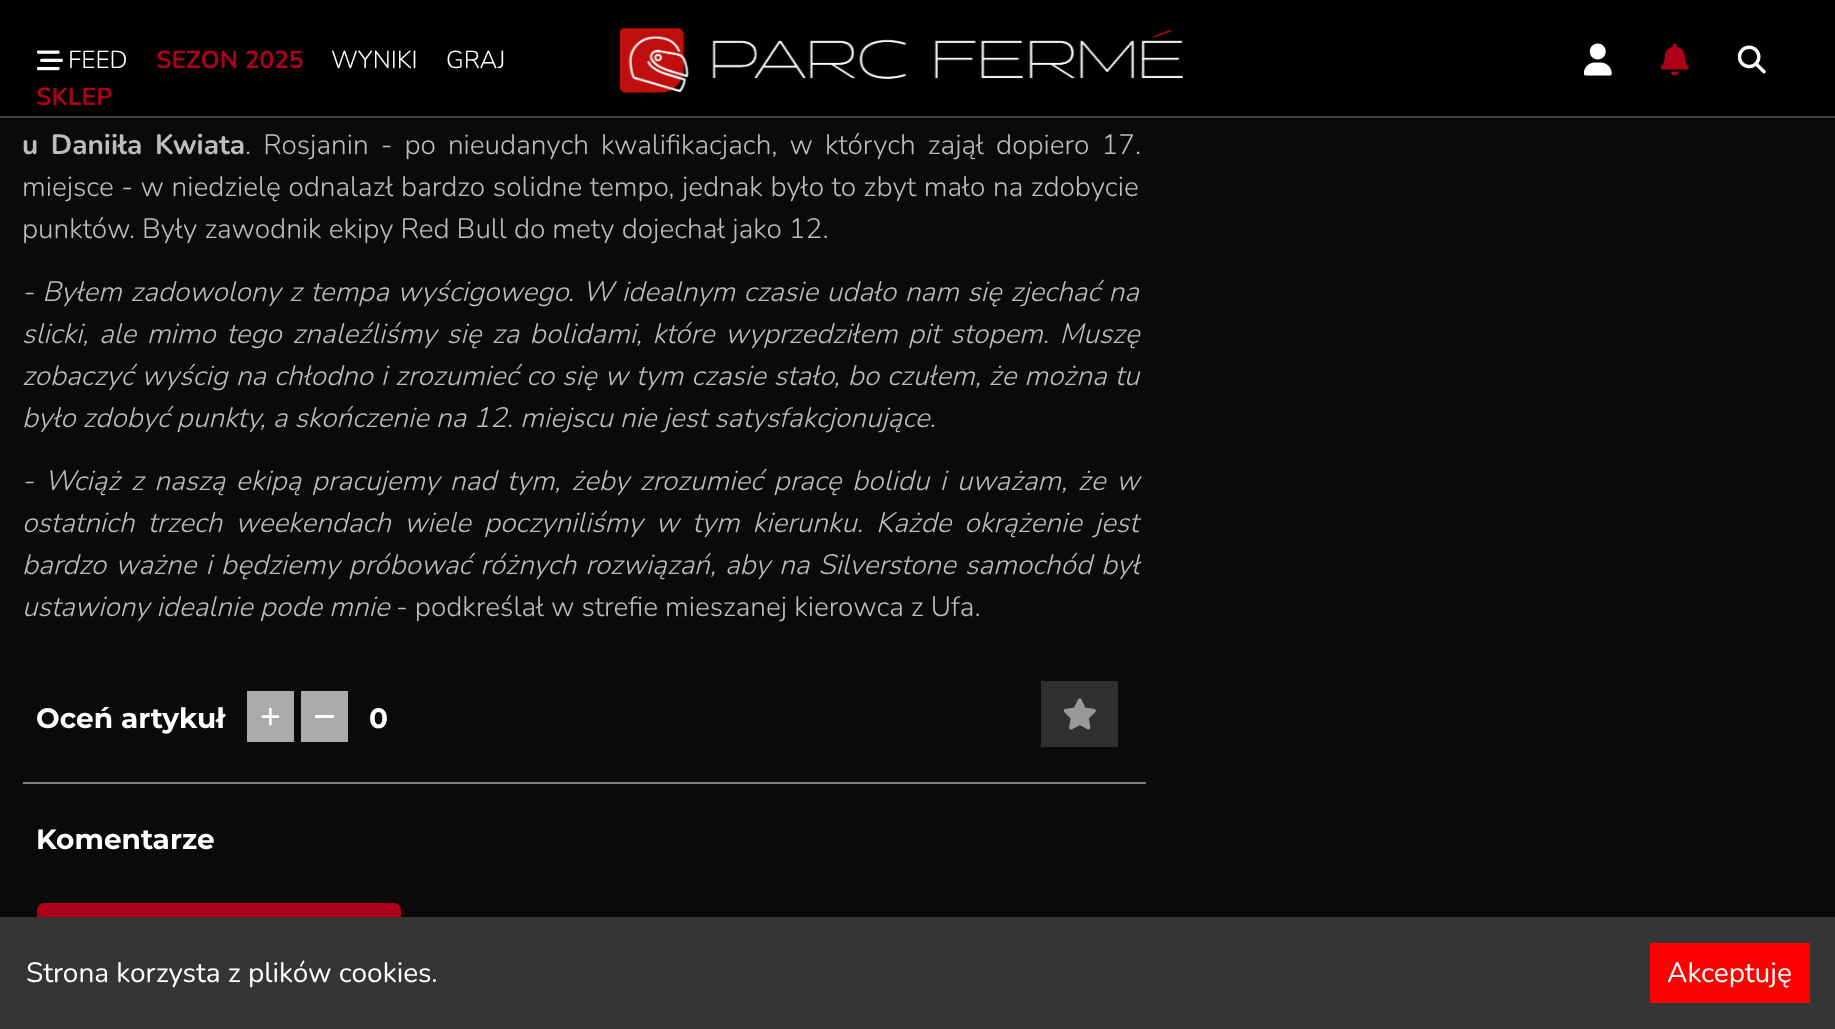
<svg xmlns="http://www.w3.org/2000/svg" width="1835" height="1029">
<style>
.a{font:300 24.5px Nunito;fill:#fff}
.b{font:bold 24.5px Nunito;fill:#ae0018}
.c{font:bold 28px Nunito;fill:#bdbdbd}
.d{font:300 28px Nunito;fill:#bdbdbd}
.e{font:italic 300 28px Nunito;fill:#bdbdbd}
.f{font:bold 28px Montserrat;fill:#fff}
.g{font:28px Nunito;fill:#fff}
</style>
<rect width="100%" height="100%" fill="#0a0a0a"/>
<path fill="#000" d="M0 0h1835v116H0z"/>
<path fill="#424242" d="M0 116h1835v2H0z"/>
<image href="1.png" x="37" y="50" width="26" height="21"/>
<image href="2.png" x="619" y="28" width="564" height="65"/>
<image href="3.png" x="1584" y="43" width="28" height="33"/>
<image href="4.png" x="1661" y="43" width="28" height="33"/>
<image href="5.png" x="1738" y="45" width="28" height="29"/>
<path fill="#808080" d="M23 782h1123v2H23z"/>
<path fill="#ababab" d="M247 691h47v51H247z"/>
<image href="6.png" x="261" y="707" width="19" height="19"/>
<path fill="#ababab" d="M301 691h47v51H301z"/>
<path fill="#fff" d="M315 715h19v3H315z"/>
<path fill="#2f2f2f" d="M1041 681h77v66H1041z"/>
<image href="7.png" x="1063" y="698" width="33" height="32"/>
<rect fill="#ae0018" x="37" y="903" width="364" height="70" rx="7"/>
<path fill="#353535" d="M0 917h1835v112H0z"/>
<path fill="#f00" d="M1650 943h160v60H1650z"/>
<text class="a" x="68" y="68">FEED</text>
<text class="b" x="156" y="68">SEZON 2025</text>
<text class="a" x="331" y="68">WYNIKI</text>
<text class="a" x="446" y="68">GRAJ</text>
<text class="b" x="36" y="105">SKLEP</text>
<text class="c" x="22" y="154" word-spacing="5">u Daniiła Kwiata</text>
<text class="d" x="245" y="154" word-spacing="5">. Rosjanin - po nieudanych kwalifikacjach, w których zajął dopiero 17.</text>
<text class="d" x="22" y="196" word-spacing="0.5">miejsce - w niedzielę odnalazł bardzo solidne tempo, jednak było to zbyt mało na zdobycie</text>
<text class="d" x="22" y="238">punktów. Były zawodnik ekipy Red Bull do mety dojechał jako 12.</text>
<text class="e" x="22" y="301" word-spacing="1.5">- Byłem zadowolony z tempa wyścigowego. W idealnym czasie udało nam się zjechać na</text>
<text class="e" x="22" y="343" word-spacing="3.5">slicki, ale mimo tego znaleźliśmy się za bolidami, które wyprzedziłem pit stopem. Muszę</text>
<text class="e" x="22" y="385" word-spacing="0.9">zobaczyć wyścig na chłodno i zrozumieć co się w tym czasie stało, bo czułem, że można tu</text>
<text class="e" x="22" y="427">było zdobyć punkty, a skończenie na 12. miejscu nie jest satysfakcjonujące.</text>
<text class="e" x="22" y="490" word-spacing="3.6">- Wciąż z naszą ekipą pracujemy nad tym, żeby zrozumieć pracę bolidu i uważam, że w</text>
<text class="e" x="22" y="532" word-spacing="6">ostatnich trzech weekendach wiele poczyniliśmy w tym kierunku. Każde okrążenie jest</text>
<text class="e" x="22" y="574" word-spacing="2.1">bardzo ważne i będziemy próbować różnych rozwiązań, aby na Silverstone samochód był</text>
<text class="e" x="22" y="616">ustawiony idealnie pode mnie</text>
<text class="d" x="396" y="616">- podkreślał w strefie mieszanej kierowca z Ufa.</text>
<text class="f" x="36" y="728">Oceń artykuł</text>
<text class="f" x="369" y="728">0</text>
<text class="f" x="36" y="849">Komentarze</text>
<text class="g" x="26" y="982">Strona korzysta z plików cookies.</text>
<text class="g" x="1667" y="982">Akceptuję</text>
</svg>
